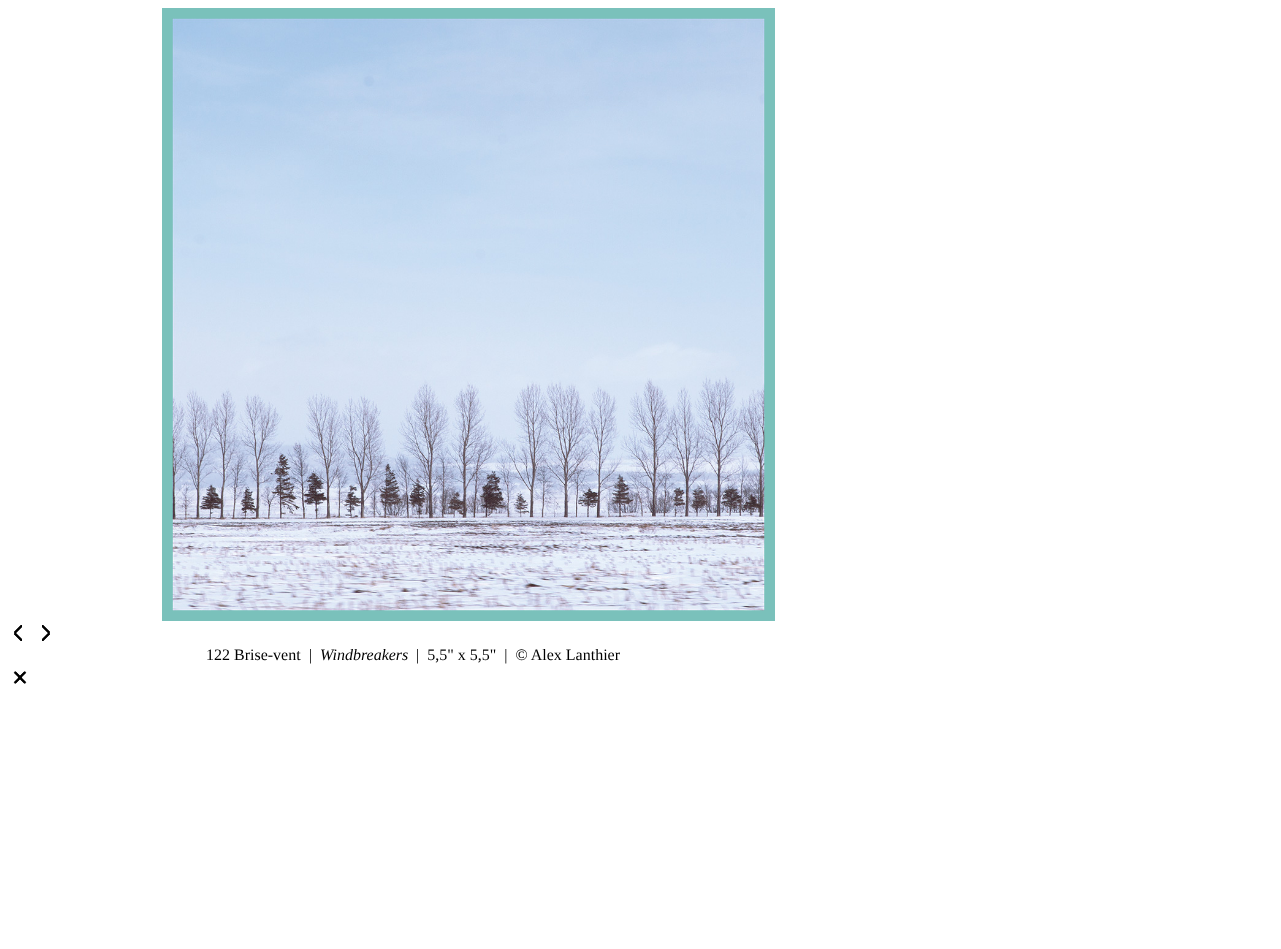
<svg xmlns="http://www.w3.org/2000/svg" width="1281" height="949">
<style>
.a{font:16px Liberation Serif;fill:#000}
.b{font:italic 16px Liberation Serif;fill:#000}
</style>
<rect width="100%" height="100%" fill="#fff"/>
<image href="1.png" x="162" y="8" width="613" height="613"/>
<image href="2.png" x="14" y="625" width="8" height="16"/>
<image href="3.png" x="42" y="625" width="8" height="16"/>
<image href="4.png" x="13" y="671" width="14" height="13"/>
<text class="a" x="206" y="660">122 Brise-vent</text>
<text class="a" x="309" y="660">|</text>
<text class="b" x="320" y="660">Windbreakers</text>
<text class="a" xml:space="preserve" x="416" y="660">|  5,5" x 5,5"  |  © Alex Lanthier</text>
</svg>
